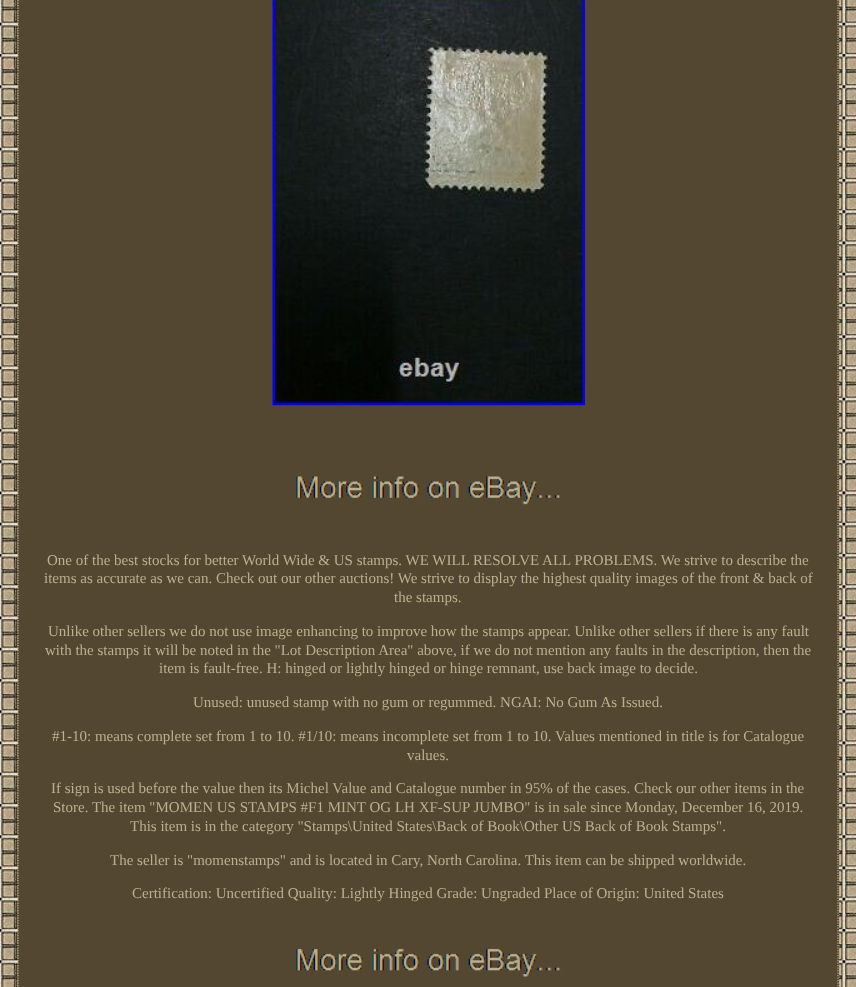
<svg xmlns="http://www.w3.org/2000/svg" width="856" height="987">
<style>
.a{font:15px Liberation Serif;fill:#bbb090}
</style>
<rect width="100%" height="100%" fill="#fff"/>
<image href="1.png" x="0" y="0" width="856" height="987"/>
<path fill="#534731" d="M18 0h821v987H18z"/>
<path fill="none" stroke="#bbb090" stroke-width="1.2" stroke-dasharray="1.25 1.25" d="M838-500v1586"/>
<path fill="none" stroke="#bbb090" stroke-width="1.2" stroke-dasharray="1.25 1.25" d="M18-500v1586"/>
<image href="2.png" x="272" y="0" width="313" height="406"/>
<image href="3.png" x="296" y="476" width="265" height="29"/>
<image href="4.png" x="296" y="948" width="265" height="29"/>
<text class="a" x="47" y="565">One of the best stocks for better World Wide &amp; US stamps. WE WILL RESOLVE ALL PROBLEMS. We strive to describe the</text>
<text class="a" x="44" y="583">items as accurate as we can. Check out our other auctions! We strive to display the highest quality images of the front &amp; back of</text>
<text class="a" x="394" y="602">the stamps.</text>
<text class="a" x="48" y="636">Unlike other sellers we do not use image enhancing to improve how the stamps appear. Unlike other sellers if there is any fault</text>
<text class="a" x="45" y="655">with the stamps it will be noted in the "Lot Description Area" above, if we do not mention any faults in the description, then the</text>
<text class="a" x="159" y="673">item is fault-free. H: hinged or lightly hinged or hinge remnant, use back image to decide.</text>
<text class="a" x="193" y="707">Unused: unused stamp with no gum or regummed. NGAI: No Gum As Issued.</text>
<text class="a" x="52" y="741">#1-10: means complete set from 1 to 10. #1/10: means incomplete set from 1 to 10. Values mentioned in title is for Catalogue</text>
<text class="a" x="407" y="760">values.</text>
<text class="a" x="51" y="793">If sign is used before the value then its Michel Value and Catalogue number in 95% of the cases. Check our other items in the</text>
<text class="a" x="53" y="812">Store. The item "MOMEN US STAMPS #F1 MINT OG LH XF-SUP JUMBO" is in sale since Monday, December 16, 2019.</text>
<text class="a" x="130" y="831">This item is in the category "Stamps\United States\Back of Book\Other US Back of Book Stamps".</text>
<text class="a" x="110" y="865">The seller is "momenstamps" and is located in Cary, North Carolina. This item can be shipped worldwide.</text>
<text class="a" x="132" y="898">Certification: Uncertified Quality: Lightly Hinged Grade: Ungraded Place of Origin: United States</text>
</svg>
